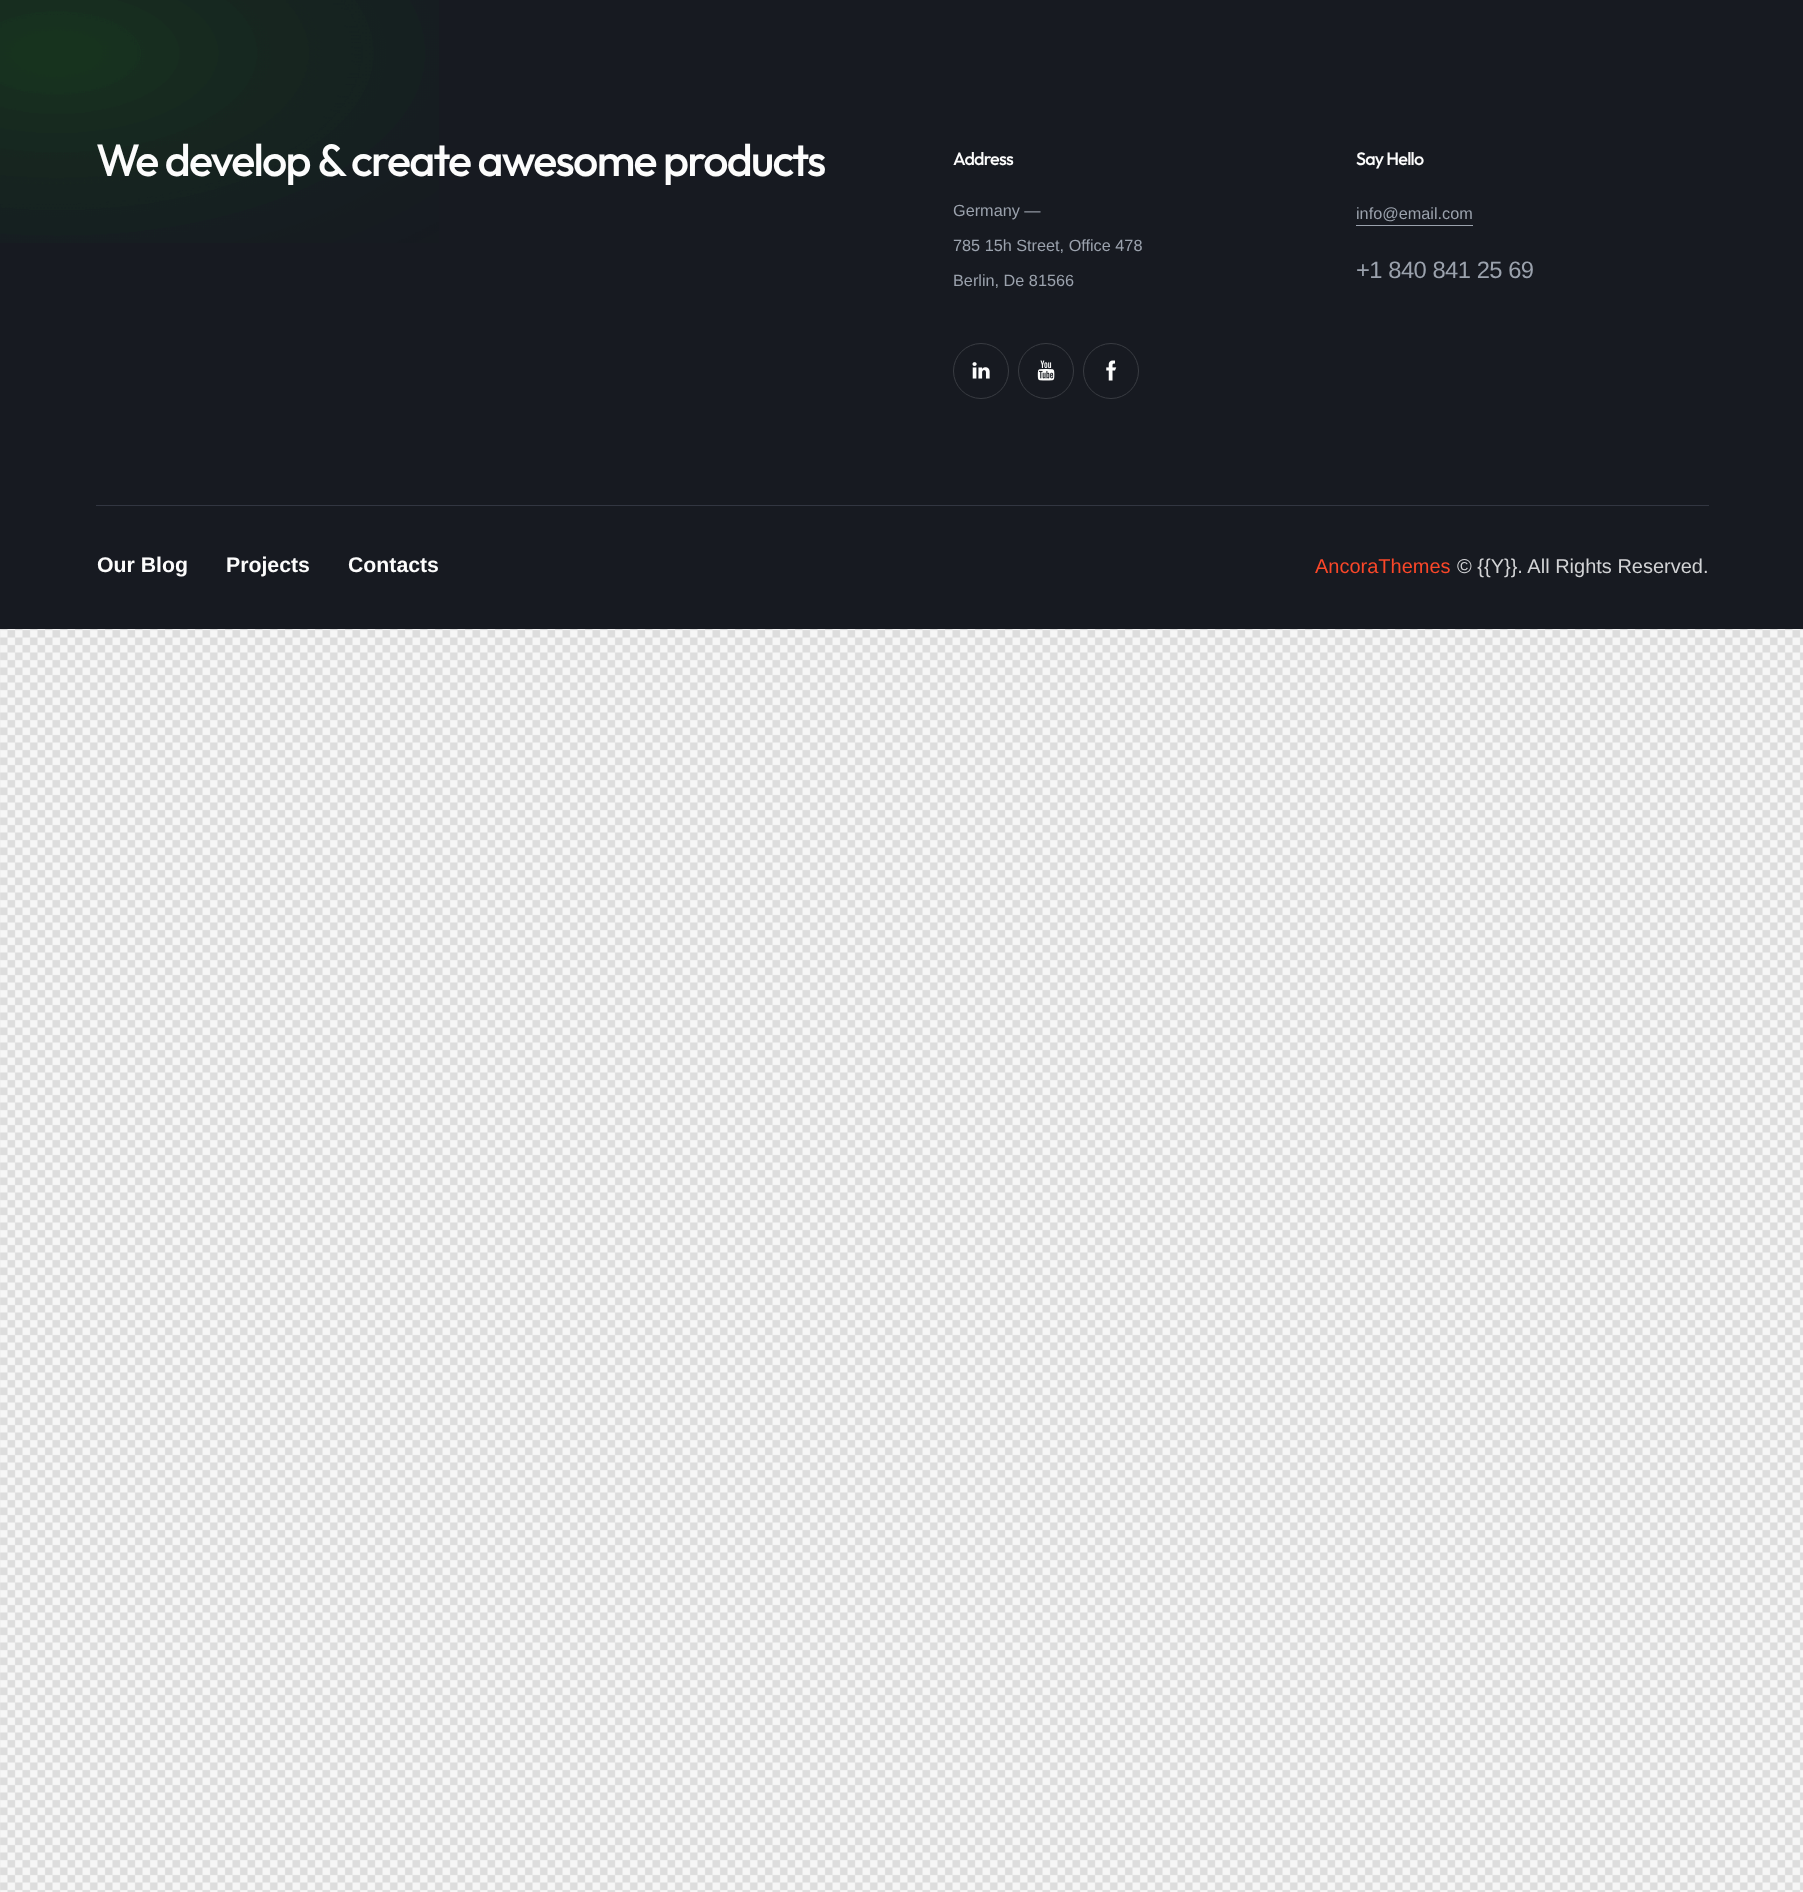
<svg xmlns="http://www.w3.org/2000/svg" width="1803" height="1892">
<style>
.a{font:500 44.9px Outfit;letter-spacing:-1.75px;fill:#fcfcfc}
.b{font:500 18px Outfit;letter-spacing:-0.75px;fill:#fcfcfc}
.c{font:16.25px Liberation Sans;fill:#9ba2ad}
.d{font:23.75px Liberation Sans;letter-spacing:-0.5px;fill:#9ba2ad}
.e{font:bold 21.25px Liberation Sans;fill:#fcfcfc}
.f{font:20px Liberation Sans;fill:#fa4729}
.g{font:20px Liberation Sans;fill:#d2d3d5}
</style>
<rect width="100%" height="100%" fill="#fff"/>
<image href="1.png" x="0" y="629" width="1803" height="1263"/>
<path fill="#171a21" d="M0 0h1803v629H0z"/>
<image href="2.png" x="0" y="0" width="439" height="243"/>
<circle fill="none" stroke="#393c42" cx="981" cy="371" r="27.5"/>
<image href="3.png" x="972" y="362" width="18" height="17"/>
<circle fill="none" stroke="#393c42" cx="1046" cy="371" r="27.5"/>
<image href="4.png" x="1037" y="360" width="18" height="21"/>
<circle fill="none" stroke="#393c42" cx="1111" cy="371" r="27.5"/>
<image href="5.png" x="1106" y="360" width="11" height="21"/>
<path fill="#9ba2ad" d="M1356 225h117v1H1356z"/>
<path fill="#323641" d="M96 505h1613v1H96z"/>
<text class="a" x="96" y="176">We develop &amp; create awesome products</text>
<text class="b" x="953" y="165">Address</text>
<text class="c" x="953" y="216">Germany —</text>
<text class="c" x="953" y="251">785 15h Street, Office 478</text>
<text class="c" x="953" y="286">Berlin, De 81566</text>
<text class="b" x="1356" y="165">Say Hello</text>
<text class="c" x="1356" y="219">info@email.com</text>
<text class="d" x="1356" y="278">+1 840 841 25 69</text>
<text class="e" x="97" y="572">Our Blog</text>
<text class="e" x="226" y="572">Projects</text>
<text class="e" x="348" y="572">Contacts</text>
<text class="f" x="1315" y="573">AncoraThemes</text>
<text class="g" x="1457" y="573">© {{Y}}. All Rights Reserved.</text>
</svg>
